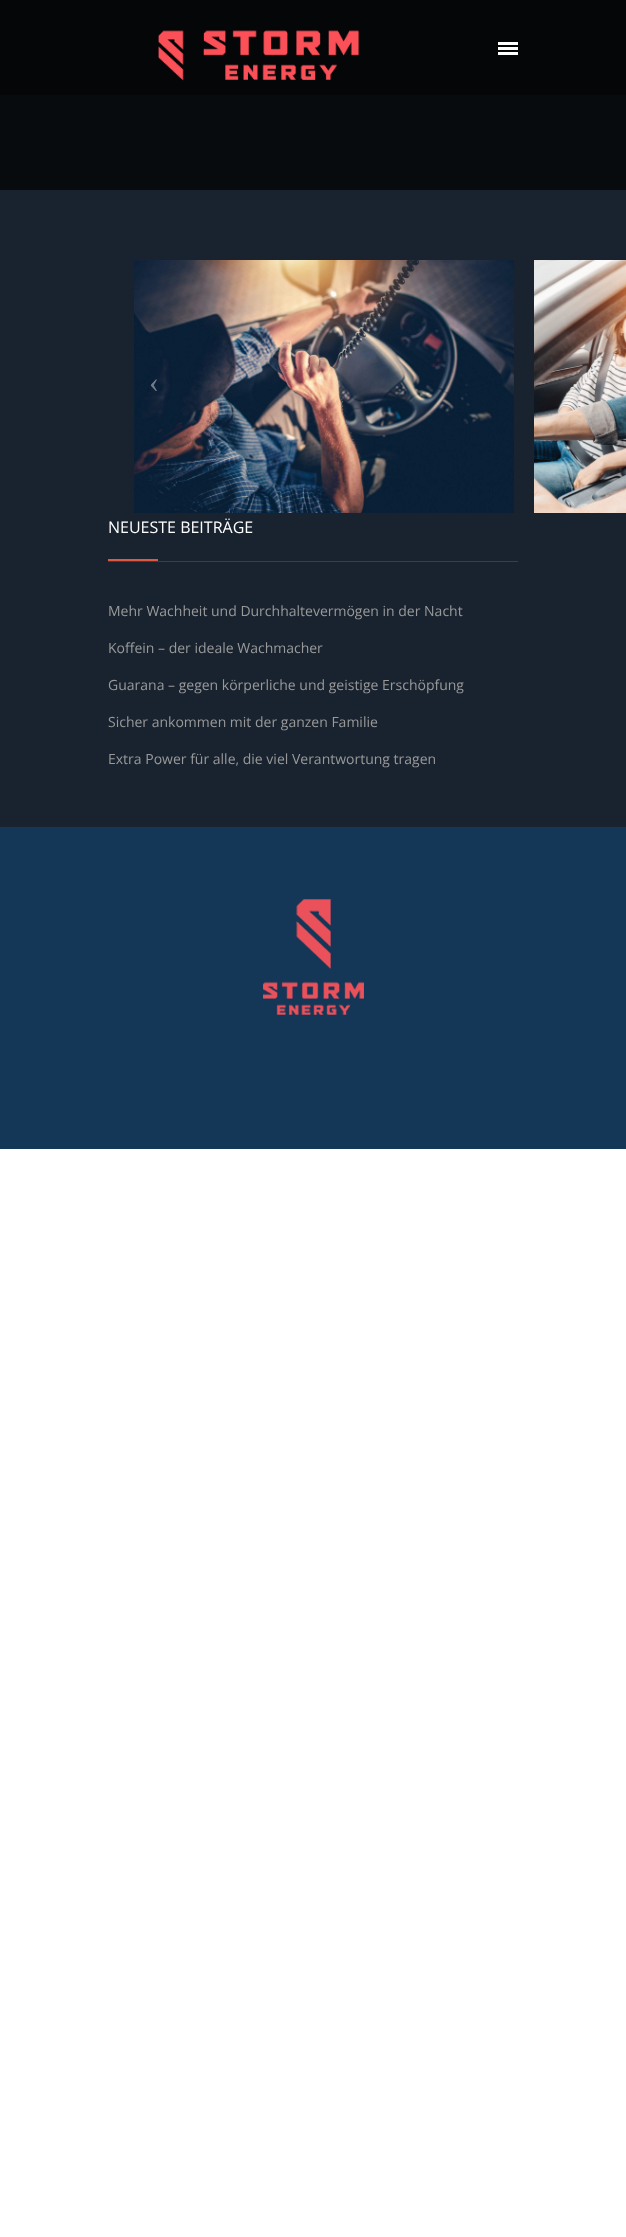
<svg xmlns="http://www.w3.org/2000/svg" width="626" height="2237">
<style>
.a{font:30px Liberation Serif;fill:#737d89}
.b{font:16px Open Sans;fill:#fff}
.c{font:14px Open Sans;fill:#999}
</style>
<rect width="100%" height="100%" fill="#fff"/>
<path fill="#19232f" d="M0 190h626v637H0z"/>
<path fill="#040607" d="M0 0h626v95H0z"/>
<image href="1.png" x="158" y="30" width="202" height="51"/>
<path fill="#fff" d="M498 42h20v3H498z"/>
<path fill="#fff" d="M498 47h20v3H498z"/>
<path fill="#fff" d="M498 52h20v3H498z"/>
<path fill="#080b0e" d="M0 95h626v95H0z"/>
<image href="2.png" x="134" y="260" width="380" height="253"/>
<image href="3.png" x="534" y="260" width="92" height="253"/>
<path fill="#2f4156" d="M108 561h410v1H108z"/>
<path fill="#de5842" d="M108 559h50v2H108z"/>
<path fill="#143657" d="M0 827h626v322H0z"/>
<image href="4.png" x="263" y="899" width="101" height="116"/>
<text class="a" x="149" y="392">‹</text>
<text class="b" x="108" y="533">NEUESTE BEITRÄGE</text>
<text class="c" x="108" y="616">Mehr Wachheit und Durchhaltevermögen in der Nacht</text>
<text class="c" x="108" y="653">Koffein – der ideale Wachmacher</text>
<text class="c" x="108" y="690">Guarana – gegen körperliche und geistige Erschöpfung</text>
<text class="c" x="108" y="727">Sicher ankommen mit der ganzen Familie</text>
<text class="c" x="108" y="764">Extra Power für alle, die viel Verantwortung tragen</text>
</svg>
